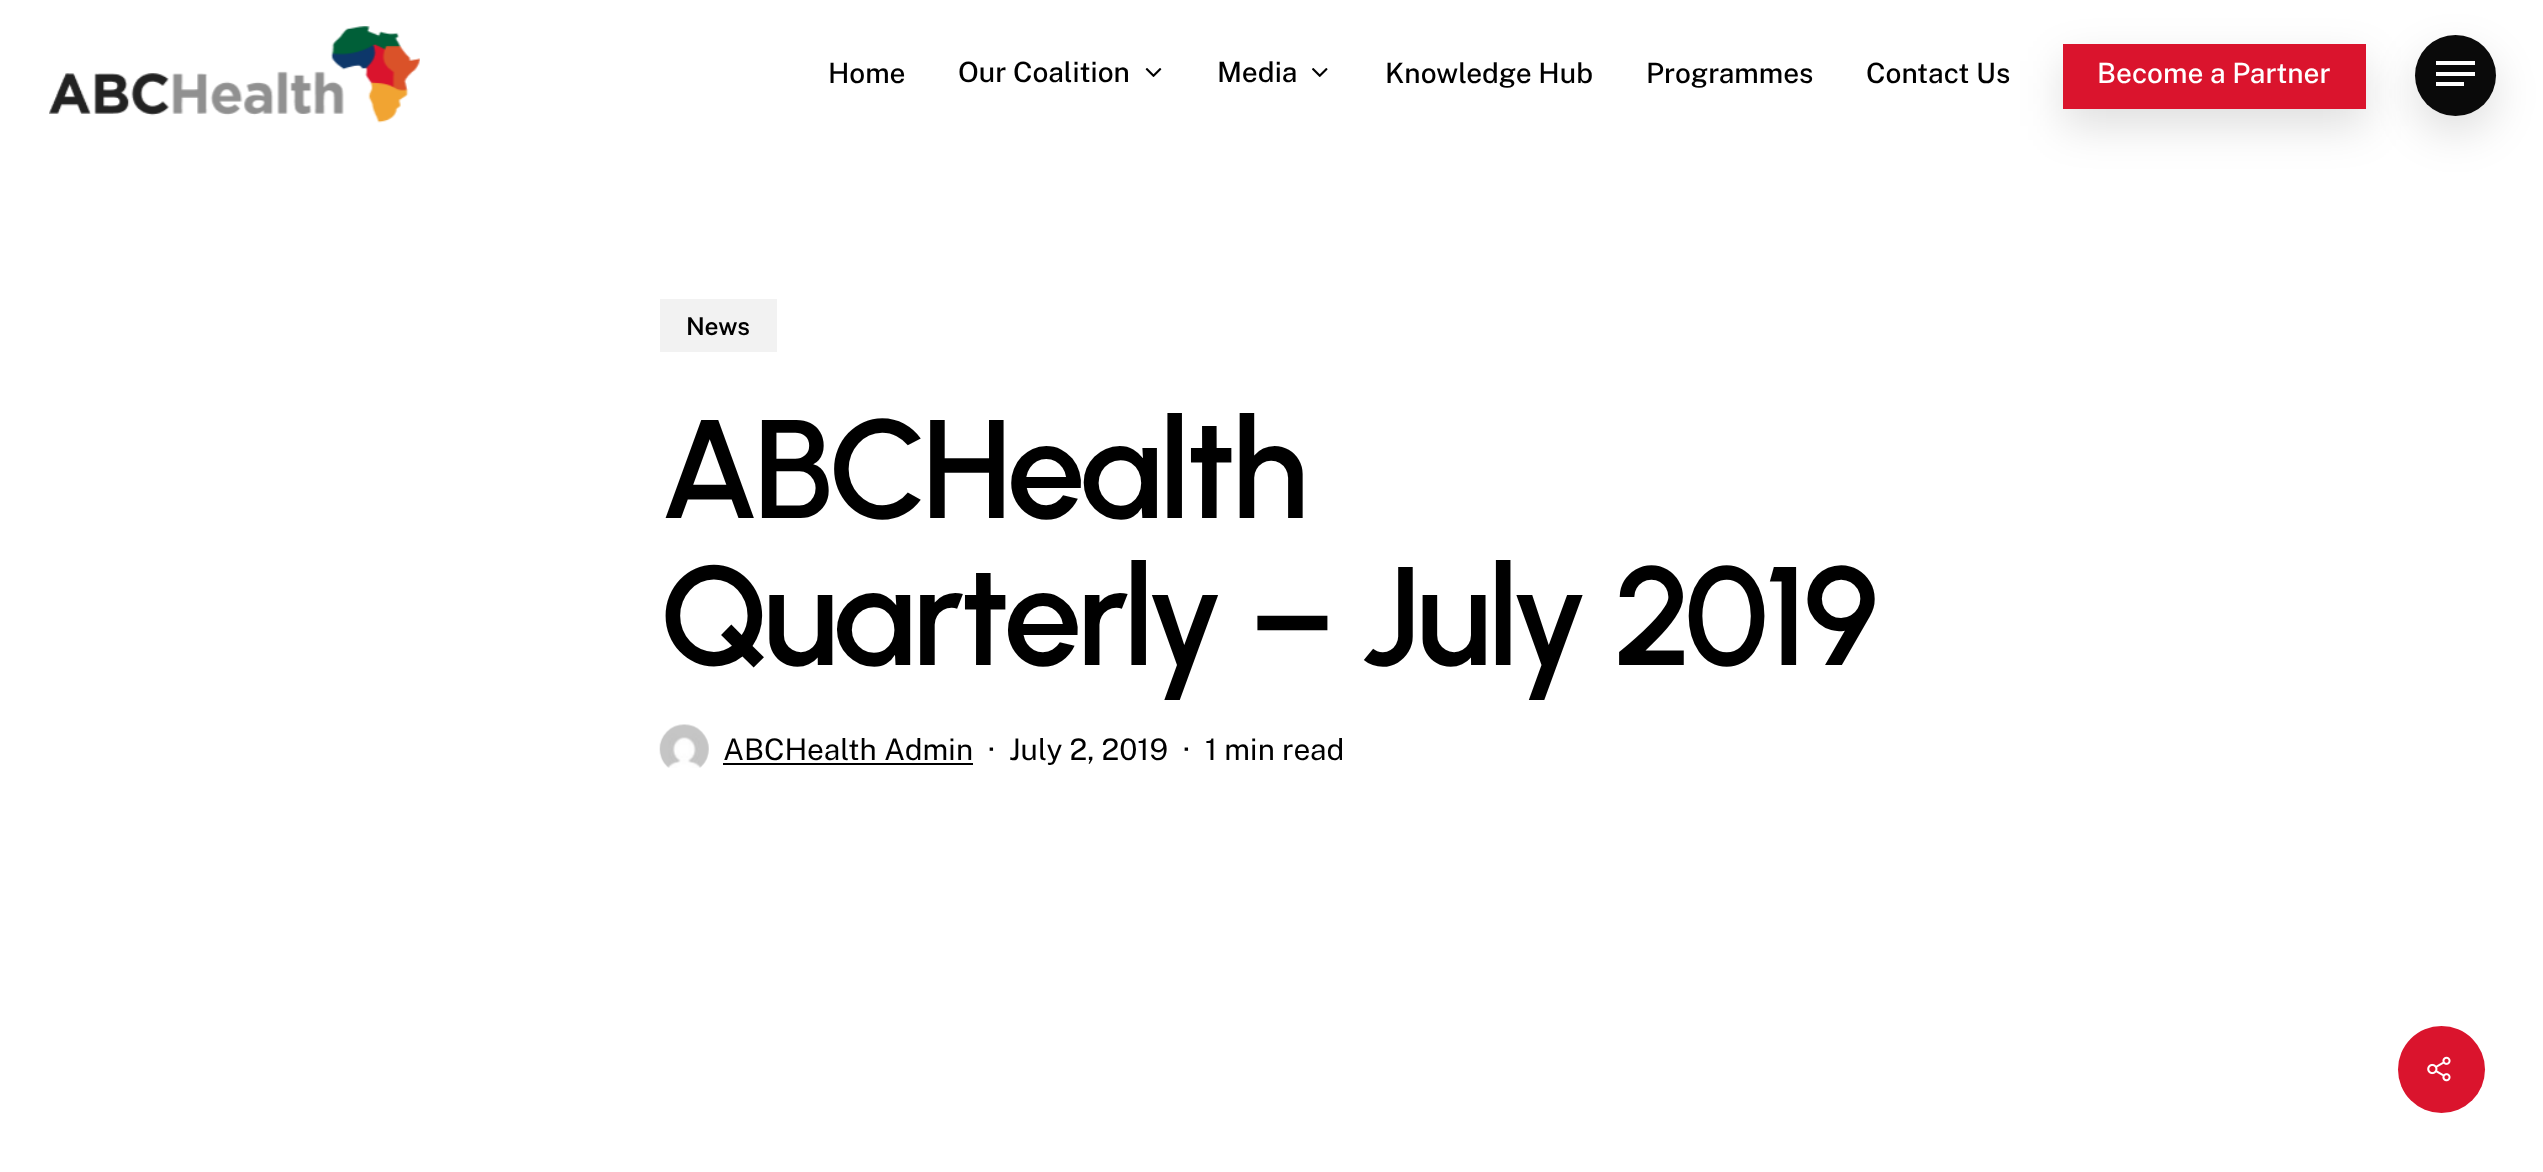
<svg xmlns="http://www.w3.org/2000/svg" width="2543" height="1172">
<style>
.a{font:500 28px Public Sans;fill:#000}
.b{font:500 28px Public Sans;fill:#fff}
.c{font:600 24.5px Public Sans;fill:#000}
.d{font:600 140px Urbanist;letter-spacing:-4.2px;fill:#000}
.e{font:29.75px Public Sans;fill:#000}
</style>
<rect width="100%" height="100%" fill="#fff"/>
<image href="1.png" x="49" y="26" width="371" height="97"/>
<image href="2.png" x="1145" y="68" width="17" height="9"/>
<image href="3.png" x="1312" y="68" width="16" height="9"/>
<path fill="#00000021" filter="blur(22px)" d="M2063 61h303v65H2063z"/>
<path fill="#da142d" d="M2063 44h303v65H2063z"/>
<rect fill="#00000021" filter="blur(22px)" x="2415" y="53" width="81" height="80" rx="40"/>
<circle fill="#0a0a0a" cx="2455.5" cy="75.5" r="40.5"/>
<path fill="#fff" d="M2436 61h39v4H2436z"/>
<path fill="#fff" d="M2436 82h28v4H2436z"/>
<path fill="#fff" d="M2436 72h39v4H2436z"/>
<path fill="#f2f2f2" d="M660 299h117v53H660z"/>
<image href="4.png" x="659" y="724" width="50" height="44"/>
<path fill="#000" d="M723 763h250v2H723z"/>
<circle fill="#da142d" cx="2441.5" cy="1069.5" r="43.5"/>
<image href="5.png" x="2427" y="1056" width="24" height="26"/>
<text class="a" x="828" y="83">Home</text>
<text class="a" x="958" y="82">Our Coalition</text>
<text class="a" x="1217" y="82">Media</text>
<text class="a" x="1385" y="83">Knowledge Hub</text>
<text class="a" x="1646" y="83">Programmes</text>
<text class="a" x="1866" y="83">Contact Us</text>
<text class="b" x="2097" y="83">Become a Partner</text>
<text class="c" x="686" y="335">News</text>
<text class="d" x="660" y="518">ABCHealth</text>
<text class="d" x="660" y="665">Quarterly – July 2019</text>
<text class="e" x="723" y="760">ABCHealth Admin</text>
<text class="e" x="988" y="760">·</text>
<text class="e" x="1009" y="760">July 2, 2019</text>
<text class="e" x="1183" y="760">·</text>
<text class="e" x="1205" y="760">1 min read</text>
</svg>
